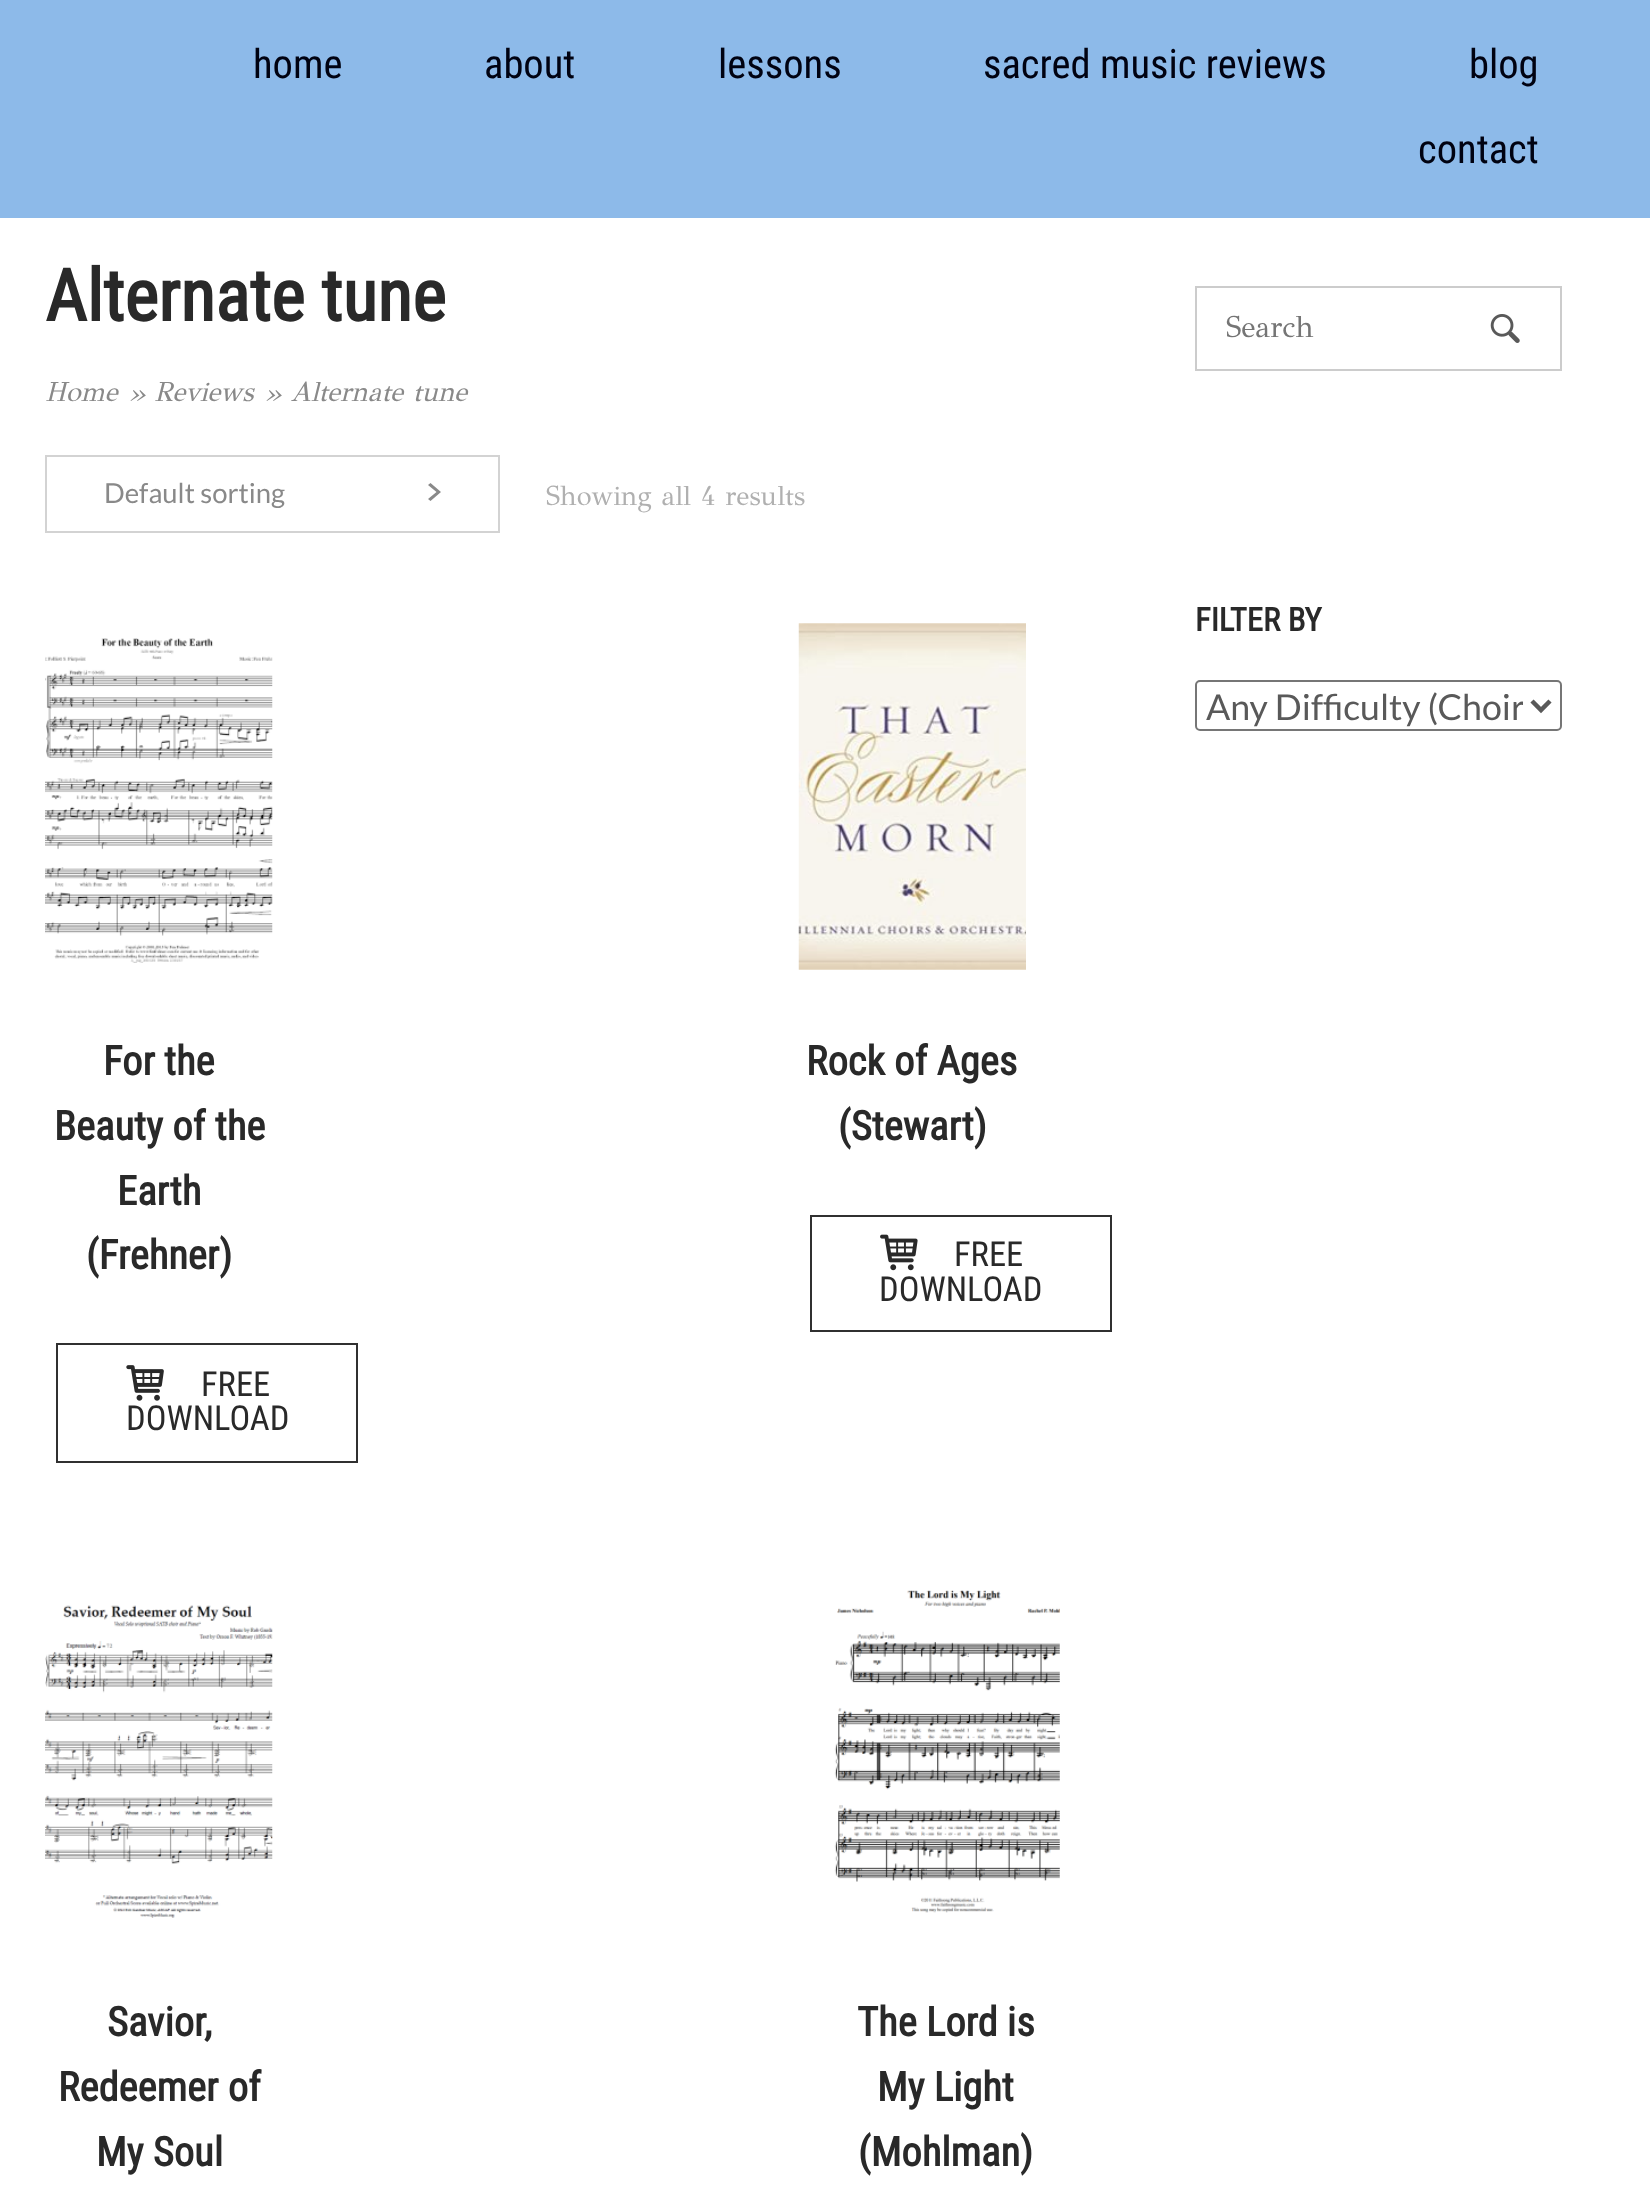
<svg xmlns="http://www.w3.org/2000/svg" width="1650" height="2192">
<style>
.a{font:40.5px Roboto Condensed;fill:#000211}
.b{font:bold 72px Roboto Condensed;fill:#292929}
.c{font:italic 27.5px GFS Didot;fill:#898989}
.d{font:27.5px Lato;fill:#898989}
.e{font:27.5px GFS Didot;fill:#b0b0b0}
.f{font:bold 40.5px Roboto Condensed;fill:#292929}
.g{font:34.5px Roboto Condensed;fill:#292929}
.h{font:30px GFS Didot;fill:#757575}
.i{font:bold 32.5px Roboto Condensed;fill:#292929}
.j{font:35.75px Lato;fill:#595959}
</style>
<defs>
<clipPath id="clip1"><path d="M1206 682h317v47H1206z"/></clipPath>
</defs>
<rect width="100%" height="100%" fill="#fff"/>
<path fill="#8dbae9" d="M0 0h1650v218H0z"/>
<path fill="none" stroke="#d3d3d3" stroke-width="2" d="M46 456h453v76H46z"/>
<path fill="#898989" d="M430.5 501l10.5-9l-10.5-9l-2.5 2l8.5 7l-8.5 7z"/>
<image href="1.png" x="45" y="638" width="228" height="325"/>
<path fill="none" stroke="#303030" stroke-width="2" d="M57 1344h300v118H57z"/>
<image href="2.png" x="126" y="1365" width="38" height="36"/>
<image href="3.png" x="798" y="623" width="228" height="347"/>
<path fill="none" stroke="#303030" stroke-width="2" d="M811 1216h300v115H811z"/>
<image href="4.png" x="880" y="1234" width="38" height="37"/>
<image href="5.png" x="45" y="1605" width="228" height="313"/>
<image href="6.png" x="834" y="1590" width="226" height="323"/>
<path fill="none" stroke="#ccc" stroke-width="2" d="M1196 287h365v83H1196z"/>
<image href="7.png" x="1490" y="314" width="30" height="29"/>
<rect fill="none" stroke="#767676" stroke-width="2" x="1196" y="681" width="365" height="49" rx="4"/>
<path fill="none" stroke="#595959" stroke-width="4.5" d="M1532 701l9 9l9-9"/>
<text class="a" x="253" y="78">home</text>
<text class="a" x="484" y="78">about</text>
<text class="a" x="718" y="78">lessons</text>
<text class="a" x="983" y="78">sacred music reviews</text>
<text class="a" x="1469" y="78">blog</text>
<text class="a" x="1418" y="163">contact</text>
<text class="b" x="45" y="321">Alternate tune</text>
<text class="c" x="45" y="401">Home » Reviews » Alternate tune</text>
<text class="d" x="104" y="503">Default sorting</text>
<text class="e" x="546" y="505">Showing all 4 results</text>
<text class="f" x="103" y="1075">For the</text>
<text class="f" x="54" y="1140">Beauty of the</text>
<text class="f" x="117" y="1205">Earth</text>
<text class="f" x="86" y="1269">(Frehner)</text>
<text class="g" x="201" y="1396">FREE</text>
<text class="g" x="126" y="1430">DOWNLOAD</text>
<text class="f" x="806" y="1075">Rock of Ages</text>
<text class="f" x="838" y="1140">(Stewart)</text>
<text class="g" x="954" y="1266">FREE</text>
<text class="g" x="879" y="1301">DOWNLOAD</text>
<text class="f" x="107" y="2036">Savior,</text>
<text class="f" x="58" y="2101">Redeemer of</text>
<text class="f" x="96" y="2166">My Soul</text>
<text class="f" x="857" y="2036">The Lord is</text>
<text class="f" x="877" y="2101">My Light</text>
<text class="f" x="858" y="2166">(Mohlman)</text>
<text class="h" x="1226" y="337">Search</text>
<text class="i" x="1195" y="631">FILTER BY</text>
<g clip-path="url(#clip1)">
<text class="j" x="1206" y="720">Any Difficulty (Choir</text>
</g>
</svg>
